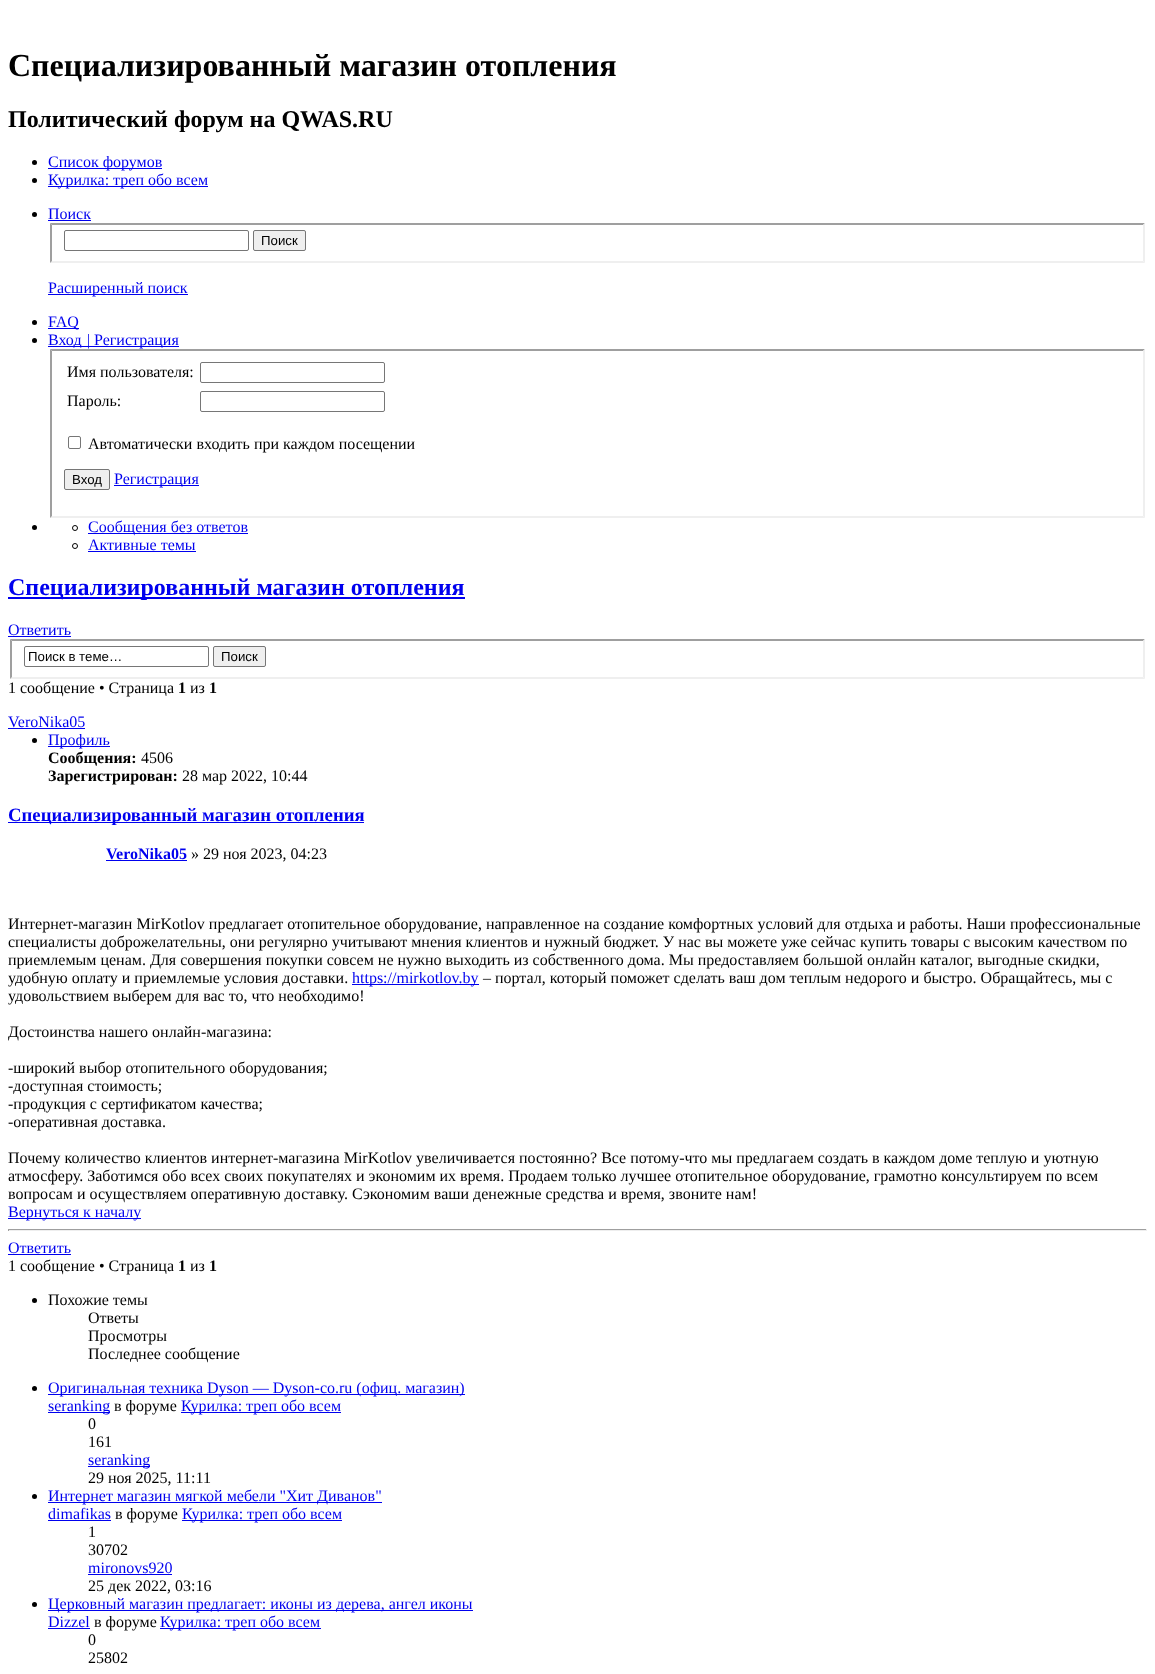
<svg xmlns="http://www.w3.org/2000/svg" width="1155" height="1674">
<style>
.a{font:bold 32px Liberation Serif;fill:#000}
.b{font:bold 24px Liberation Serif;fill:#000}
.c{font:16px Liberation Serif;fill:#00e}
.d{font:13.25px Liberation Sans;fill:#000}
.e{font:italic 16px Liberation Serif;fill:#00e}
.f{font:16px Liberation Serif;fill:#000}
.g{font:bold 24px Liberation Serif;fill:#00e}
.h{font:bold 16px Liberation Serif;fill:#000}
.i{font:bold 18.75px Liberation Serif;fill:#00e}
.j{font:bold 16px Liberation Serif;fill:#00e}
</style>
<rect width="100%" height="100%" fill="#fff"/>
<circle fill="#000" cx="34.5" cy="162.5" r="2.5"/>
<path fill="#00e" d="M48 168h114v1H48z"/>
<circle fill="#000" cx="34.5" cy="180.5" r="2.5"/>
<path fill="#00e" d="M48 186h160v1H48z"/>
<circle fill="#000" cx="34.5" cy="214.5" r="2.5"/>
<path fill="#00e" d="M48 220h43v1H48z"/>
<path fill="#9f9f9f" d="M50 223h1095l-2 2h-1091z"/>
<path fill="#efefef" d="M1145 223v40l-2-2v-36z"/>
<path fill="#efefef" d="M1145 263h-1095l2-2h1091z"/>
<path fill="#9f9f9f" d="M50 263v-40l2 2v36z"/>
<rect fill="none" stroke="#767676" x="64.5" y="230.5" width="184" height="20" rx="1.5"/>
<rect fill="#efefef" stroke="#767676" x="253.5" y="230.5" width="52" height="20" rx="1.5"/>
<path fill="#00e" d="M48 294h140v1H48z"/>
<circle fill="#000" cx="34.5" cy="322.5" r="2.5"/>
<path fill="#00e" d="M48 328h31v1H48z"/>
<circle fill="#000" cx="34.5" cy="340.5" r="2.5"/>
<path fill="#00e" d="M48 346h131v1H48z"/>
<path fill="#9f9f9f" d="M50 349h1095l-2 2h-1091z"/>
<path fill="#efefef" d="M1145 349v169l-2-2v-165z"/>
<path fill="#efefef" d="M1145 518h-1095l2-2h1091z"/>
<path fill="#9f9f9f" d="M50 518v-169l2 2v165z"/>
<rect fill="none" stroke="#767676" x="200.5" y="362.5" width="184" height="20" rx="1.5"/>
<rect fill="none" stroke="#767676" x="200.5" y="391.5" width="184" height="20" rx="1.5"/>
<rect fill="none" stroke="#767676" x="68.5" y="436.5" width="12" height="12" rx="1.5"/>
<rect fill="#efefef" stroke="#767676" x="64.5" y="469.5" width="45" height="20" rx="1.5"/>
<path fill="#00e" d="M114 485h85v1H114z"/>
<circle fill="#000" cx="34.5" cy="527.5" r="2.5"/>
<circle fill="none" stroke="#000" cx="75" cy="528" r="2.5"/>
<path fill="#00e" d="M88 533h160v1H88z"/>
<circle fill="none" stroke="#000" cx="75" cy="546" r="2.5"/>
<path fill="#00e" d="M88 551h108v1H88z"/>
<path fill="#00e" d="M8 597h457v2H8z"/>
<path fill="#00e" d="M8 636h63v1H8z"/>
<path fill="#9f9f9f" d="M10 639h1135l-2 2h-1131z"/>
<path fill="#efefef" d="M1145 639v40l-2-2v-36z"/>
<path fill="#efefef" d="M1145 679h-1135l2-2h1131z"/>
<path fill="#9f9f9f" d="M10 679v-40l2 2v36z"/>
<rect fill="none" stroke="#767676" x="24.5" y="646.5" width="184" height="20" rx="1.5"/>
<rect fill="#efefef" stroke="#767676" x="213.5" y="646.5" width="52" height="20" rx="1.5"/>
<path fill="#00e" d="M8 728h77v1H8z"/>
<circle fill="#000" cx="34.5" cy="740.5" r="2.5"/>
<path fill="#00e" d="M48 746h62v1H48z"/>
<path fill="#00e" d="M8 822h356v1H8z"/>
<path fill="#00e" d="M106 860h81v1H106z"/>
<path fill="#00e" d="M352 984h127v1H352z"/>
<path fill="#00e" d="M8 1218h133v1H8z"/>
<path fill="#9f9f9f" d="M8 1229h1139v1H8z"/>
<path fill="#eee" d="M1146 1229h1v2H1146z"/>
<path fill="#eee" d="M8 1230h1139v1H8z"/>
<path fill="#9f9f9f" d="M8 1229h1v2H8z"/>
<path fill="#00e" d="M8 1254h63v1H8z"/>
<circle fill="#000" cx="34.5" cy="1300.5" r="2.5"/>
<circle fill="#000" cx="34.5" cy="1388.5" r="2.5"/>
<path fill="#00e" d="M48 1394h417v1H48z"/>
<path fill="#00e" d="M48 1412h62v1H48z"/>
<path fill="#00e" d="M181 1412h160v1H181z"/>
<path fill="#00e" d="M88 1466h62v1H88z"/>
<circle fill="#000" cx="34.5" cy="1496.5" r="2.5"/>
<path fill="#00e" d="M48 1502h334v1H48z"/>
<path fill="#00e" d="M48 1520h63v1H48z"/>
<path fill="#00e" d="M182 1520h160v1H182z"/>
<path fill="#00e" d="M88 1574h84v1H88z"/>
<circle fill="#000" cx="34.5" cy="1604.5" r="2.5"/>
<path fill="#00e" d="M48 1610h425v1H48z"/>
<path fill="#00e" d="M48 1628h42v1H48z"/>
<path fill="#00e" d="M160 1628h161v1H160z"/>
<text class="a" x="8" y="76">Специализированный магазин отопления</text>
<text class="b" x="8" y="127">Политический форум на QWAS.RU</text>
<text class="c" x="48" y="167">Список форумов</text>
<text class="c" x="48" y="185">Курилка: треп обо всем</text>
<text class="c" x="48" y="219">Поиск</text>
<text class="d" x="261" y="245">Поиск</text>
<text class="c" x="48" y="293">Расширенный поиск</text>
<text class="c" x="48" y="327">FAQ</text>
<text class="c" x="48" y="345">Вход</text>
<text class="e" x="86" y="345">|</text>
<text class="c" x="94" y="345">Регистрация</text>
<text class="f" x="67" y="377">Имя пользователя:</text>
<text class="f" x="67" y="406">Пароль:</text>
<text class="f" x="88" y="449">Автоматически входить при каждом посещении</text>
<text class="d" x="72" y="484">Вход</text>
<text class="c" x="114" y="484">Регистрация</text>
<text class="c" x="88" y="532">Сообщения без ответов</text>
<text class="c" x="88" y="550">Активные темы</text>
<text class="g" x="8" y="595">Специализированный магазин отопления</text>
<text class="c" x="8" y="635">Ответить</text>
<text class="d" x="28" y="661">Поиск в теме…</text>
<text class="d" x="221" y="661">Поиск</text>
<text class="f" x="8" y="693">1 сообщение • Страница</text>
<text class="h" x="178" y="693">1</text>
<text class="f" x="190" y="693">из</text>
<text class="h" x="209" y="693">1</text>
<text class="c" x="8" y="727">VeroNika05</text>
<text class="c" x="48" y="745">Профиль</text>
<text class="h" x="48" y="763">Сообщения:</text>
<text class="f" x="141" y="763">4506</text>
<text class="h" x="48" y="781">Зарегистрирован:</text>
<text class="f" x="182" y="781">28 мар 2022, 10:44</text>
<text class="i" x="8" y="821">Специализированный магазин отопления</text>
<text class="j" x="106" y="859">VeroNika05</text>
<text class="f" x="191" y="859">» 29 ноя 2023, 04:23</text>
<text class="f" x="8" y="929">Интернет-магазин MirKotlov предлагает отопительное оборудование, направленное на создание комфортных условий для отдыха и работы. Наши профессиональные</text>
<text class="f" x="8" y="947">специалисты доброжелательны, они регулярно учитывают мнения клиентов и нужный бюджет. У нас вы можете уже сейчас купить товары с высоким качеством по</text>
<text class="f" x="8" y="965">приемлемым ценам. Для совершения покупки совсем не нужно выходить из собственного дома. Мы предоставляем большой онлайн каталог, выгодные скидки,</text>
<text class="f" x="8" y="983">удобную оплату и приемлемые условия доставки.</text>
<text class="c" x="352" y="983">https://mirkotlov.by</text>
<text class="f" x="483" y="983">‒ портал, который поможет сделать ваш дом теплым недорого и быстро. Обращайтесь, мы с</text>
<text class="f" x="8" y="1001">удовольствием выберем для вас то, что необходимо!</text>
<text class="f" x="8" y="1037">Достоинства нашего онлайн-магазина:</text>
<text class="f" x="8" y="1073">-широкий выбор отопительного оборудования;</text>
<text class="f" x="8" y="1091">-доступная стоимость;</text>
<text class="f" x="8" y="1109">-продукция с сертификатом качества;</text>
<text class="f" x="8" y="1127">-оперативная доставка.</text>
<text class="f" x="8" y="1163">Почему количество клиентов интернет-магазина MirKotlov увеличивается постоянно? Все потому-что мы предлагаем создать в каждом доме теплую и уютную</text>
<text class="f" x="8" y="1181">атмосферу. Заботимся обо всех своих покупателях и экономим их время. Продаем только лучшее отопительное оборудование, грамотно консультируем по всем</text>
<text class="f" x="8" y="1199">вопросам и осуществляем оперативную доставку. Сэкономим ваши денежные средства и время, звоните нам!</text>
<text class="c" x="8" y="1217">Вернуться к началу</text>
<text class="c" x="8" y="1253">Ответить</text>
<text class="f" x="8" y="1271">1 сообщение • Страница</text>
<text class="h" x="178" y="1271">1</text>
<text class="f" x="190" y="1271">из</text>
<text class="h" x="209" y="1271">1</text>
<text class="f" x="48" y="1305">Похожие темы</text>
<text class="f" x="88" y="1323">Ответы</text>
<text class="f" x="88" y="1341">Просмотры</text>
<text class="f" x="88" y="1359">Последнее сообщение</text>
<text class="c" x="48" y="1393">Оригинальная техника Dyson — Dyson-co.ru (офиц. магазин)</text>
<text class="c" x="48" y="1411">seranking</text>
<text class="f" x="114" y="1411">в форуме</text>
<text class="c" x="181" y="1411">Курилка: треп обо всем</text>
<text class="f" x="88" y="1429">0</text>
<text class="f" x="88" y="1447">161</text>
<text class="c" x="88" y="1465">seranking</text>
<text class="f" x="88" y="1483">29 ноя 2025, 11:11</text>
<text class="c" x="48" y="1501">Интернет магазин мягкой мебели "Хит Диванов"</text>
<text class="c" x="48" y="1519">dimafikas</text>
<text class="f" x="115" y="1519">в форуме</text>
<text class="c" x="182" y="1519">Курилка: треп обо всем</text>
<text class="f" x="88" y="1537">1</text>
<text class="f" x="88" y="1555">30702</text>
<text class="c" x="88" y="1573">mironovs920</text>
<text class="f" x="88" y="1591">25 дек 2022, 03:16</text>
<text class="c" x="48" y="1609">Церковный магазин предлагает: иконы из дерева, ангел иконы</text>
<text class="c" x="48" y="1627">Dizzel</text>
<text class="f" x="94" y="1627">в форуме</text>
<text class="c" x="160" y="1627">Курилка: треп обо всем</text>
<text class="f" x="88" y="1645">0</text>
<text class="f" x="88" y="1663">25802</text>
</svg>
